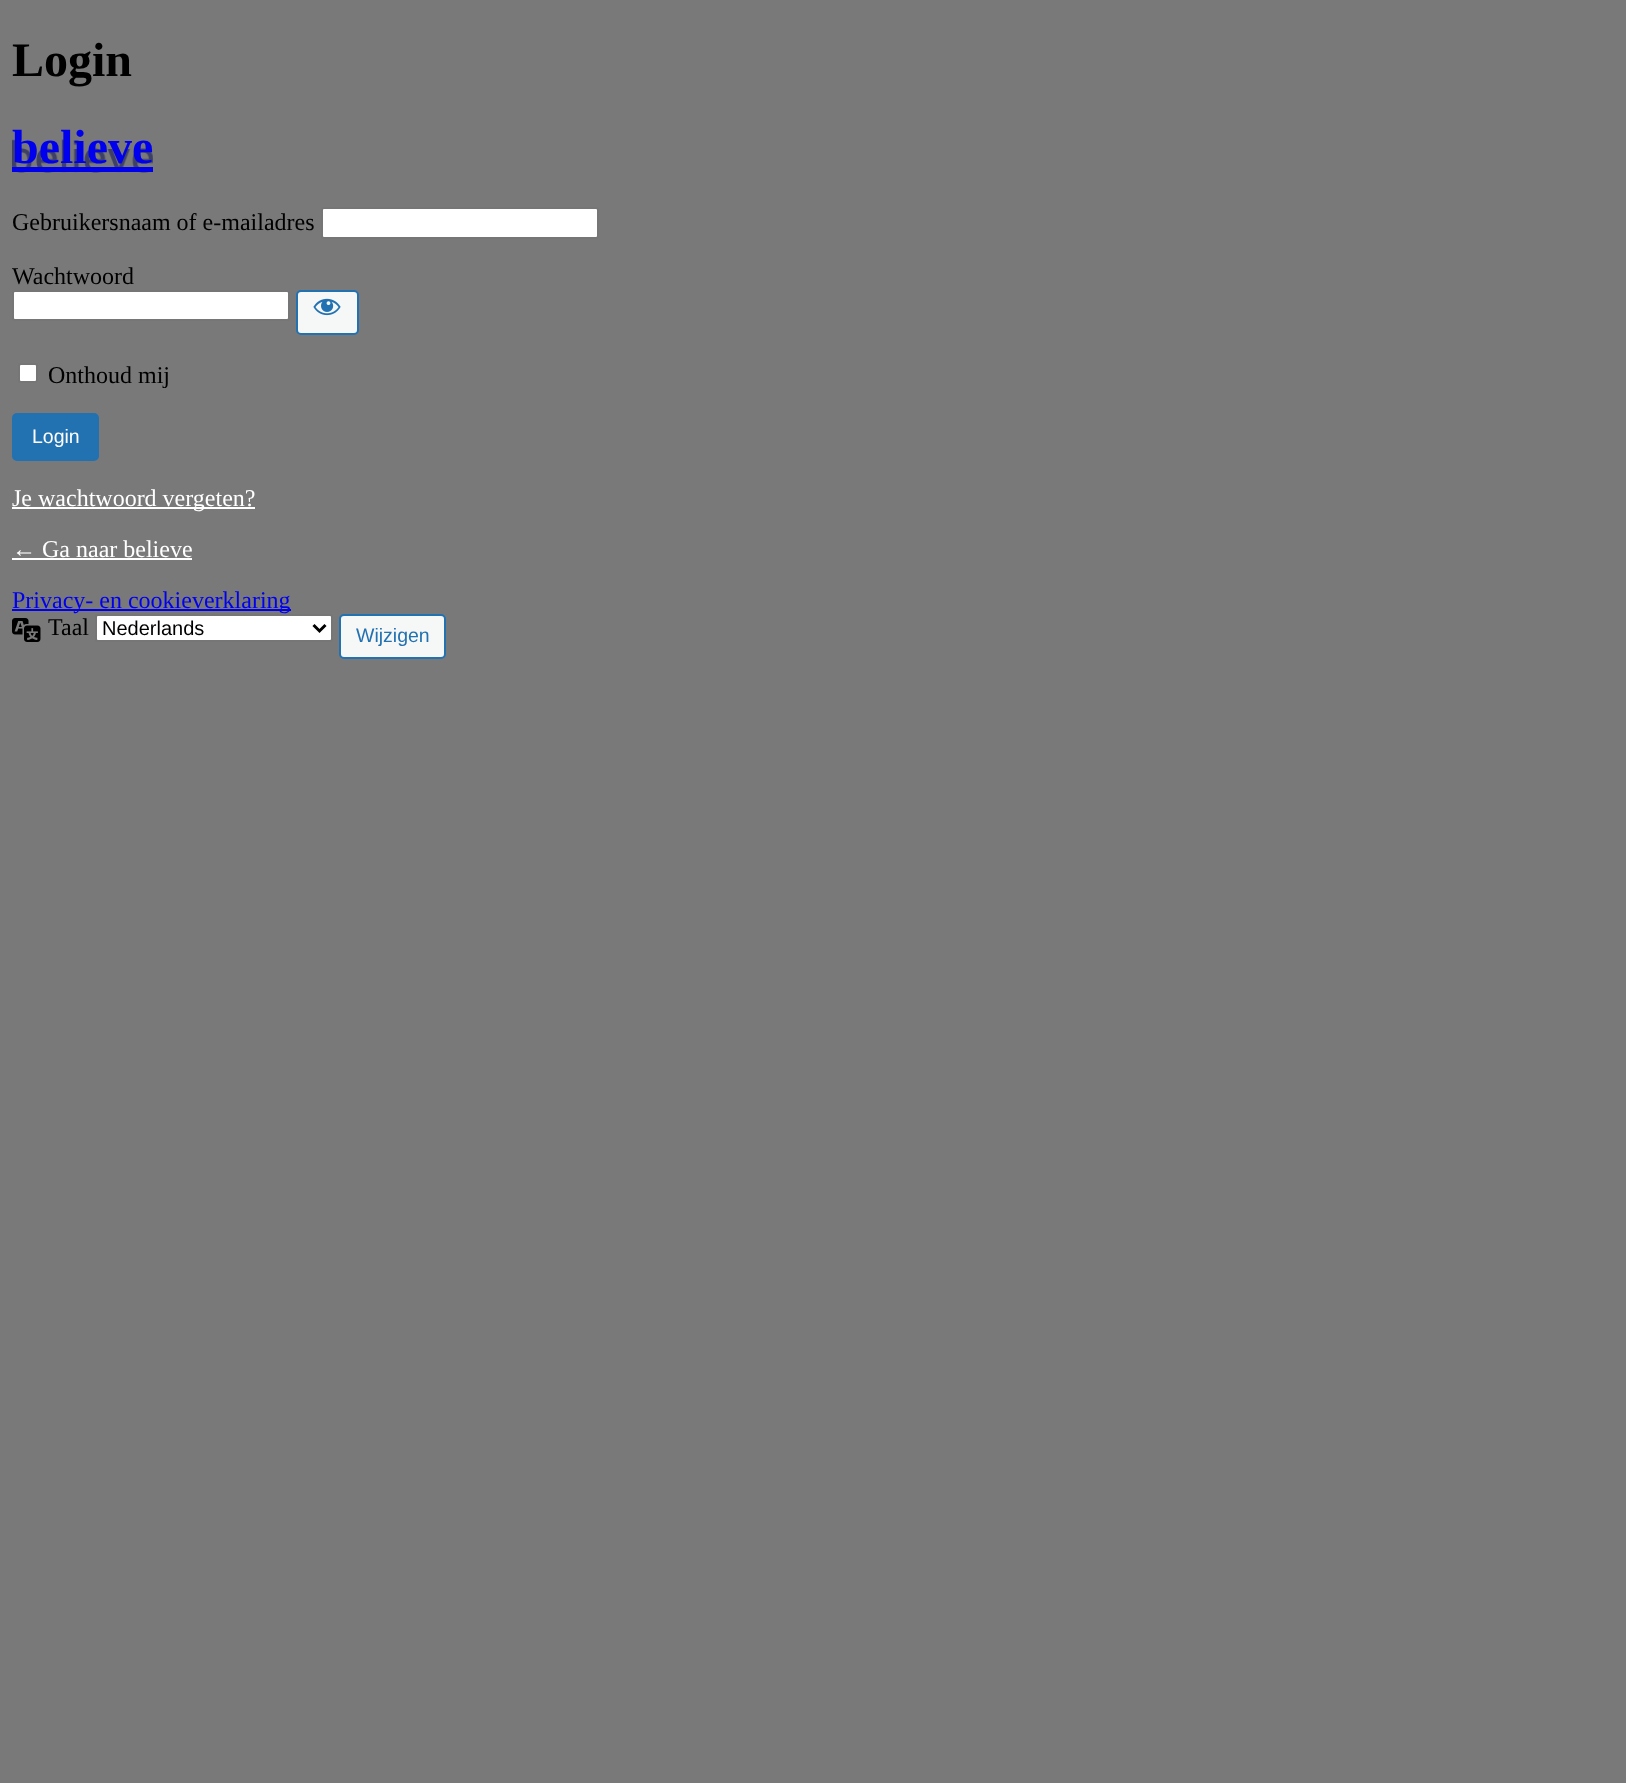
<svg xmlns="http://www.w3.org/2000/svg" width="1626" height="1783">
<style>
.a{font:bold 48px Liberation Serif;fill:#000}
.b{font:bold 48px Liberation Serif;fill:#00e}
.c{font:24px Liberation Serif;fill:#000}
.d{font:19.5px Liberation Sans;fill:#fff}
.e{font:24px Liberation Serif;fill:#fff}
.f{font:24px Liberation Serif;fill:#00e}
.g{font:20px Liberation Sans;fill:#000}
.h{font:19.5px Liberation Sans;fill:#2271b1}
</style>
<rect width="100%" height="100%" fill="#797979"/>
<image href="1.png" x="12" y="139" width="141" height="34"/>
<path fill="#00e" d="M12 167h141v5H12z"/>
<rect fill="#fff" stroke="#767676" stroke-width="2" x="322" y="208" width="276" height="30" rx="2"/>
<rect fill="#fff" stroke="#767676" stroke-width="2" x="13" y="291" width="276" height="29" rx="2"/>
<rect fill="#f6f7f7" stroke="#2271b1" stroke-width="2" x="297" y="291" width="61" height="43" rx="4"/>
<image href="2.png" x="313" y="298" width="28" height="18"/>
<rect fill="#fff" stroke="#767676" stroke-width="2" x="19" y="364" width="18" height="18" rx="2"/>
<rect fill="#2271b1" stroke="#2271b1" stroke-width="2" x="13" y="414" width="85" height="46" rx="4"/>
<path fill="#fff" d="M12 507h243v2H12z"/>
<path fill="#fff" d="M12 558h180v2H12z"/>
<path fill="#00e" d="M12 609h279v2H12z"/>
<image href="3.png" x="12" y="618" width="29" height="24"/>
<rect fill="#fff" stroke="#767676" stroke-width="2" x="96" y="615" width="236" height="26" rx="2"/>
<path fill="none" stroke="#000" stroke-width="3" d="M313.5 625l6 6l6-6"/>
<rect fill="#f6f7f7" stroke="#2271b1" stroke-width="2" x="340" y="615" width="105" height="43" rx="4"/>
<text class="a" x="12" y="76">Login</text>
<text class="b" x="12" y="163">believe</text>
<text class="c" x="12" y="230">Gebruikersnaam of e-mailadres</text>
<text class="c" x="12" y="284">Wachtwoord</text>
<text class="c" x="48" y="383">Onthoud mij</text>
<text class="d" x="32" y="443">Login</text>
<text class="e" x="12" y="506">Je wachtwoord vergeten?</text>
<text class="e" x="12" y="557">← Ga naar believe</text>
<text class="f" x="12" y="608">Privacy- en cookieverklaring</text>
<text class="c" x="48" y="635">Taal</text>
<text class="g" x="102" y="635">Nederlands</text>
<text class="h" x="356" y="642">Wijzigen</text>
</svg>
